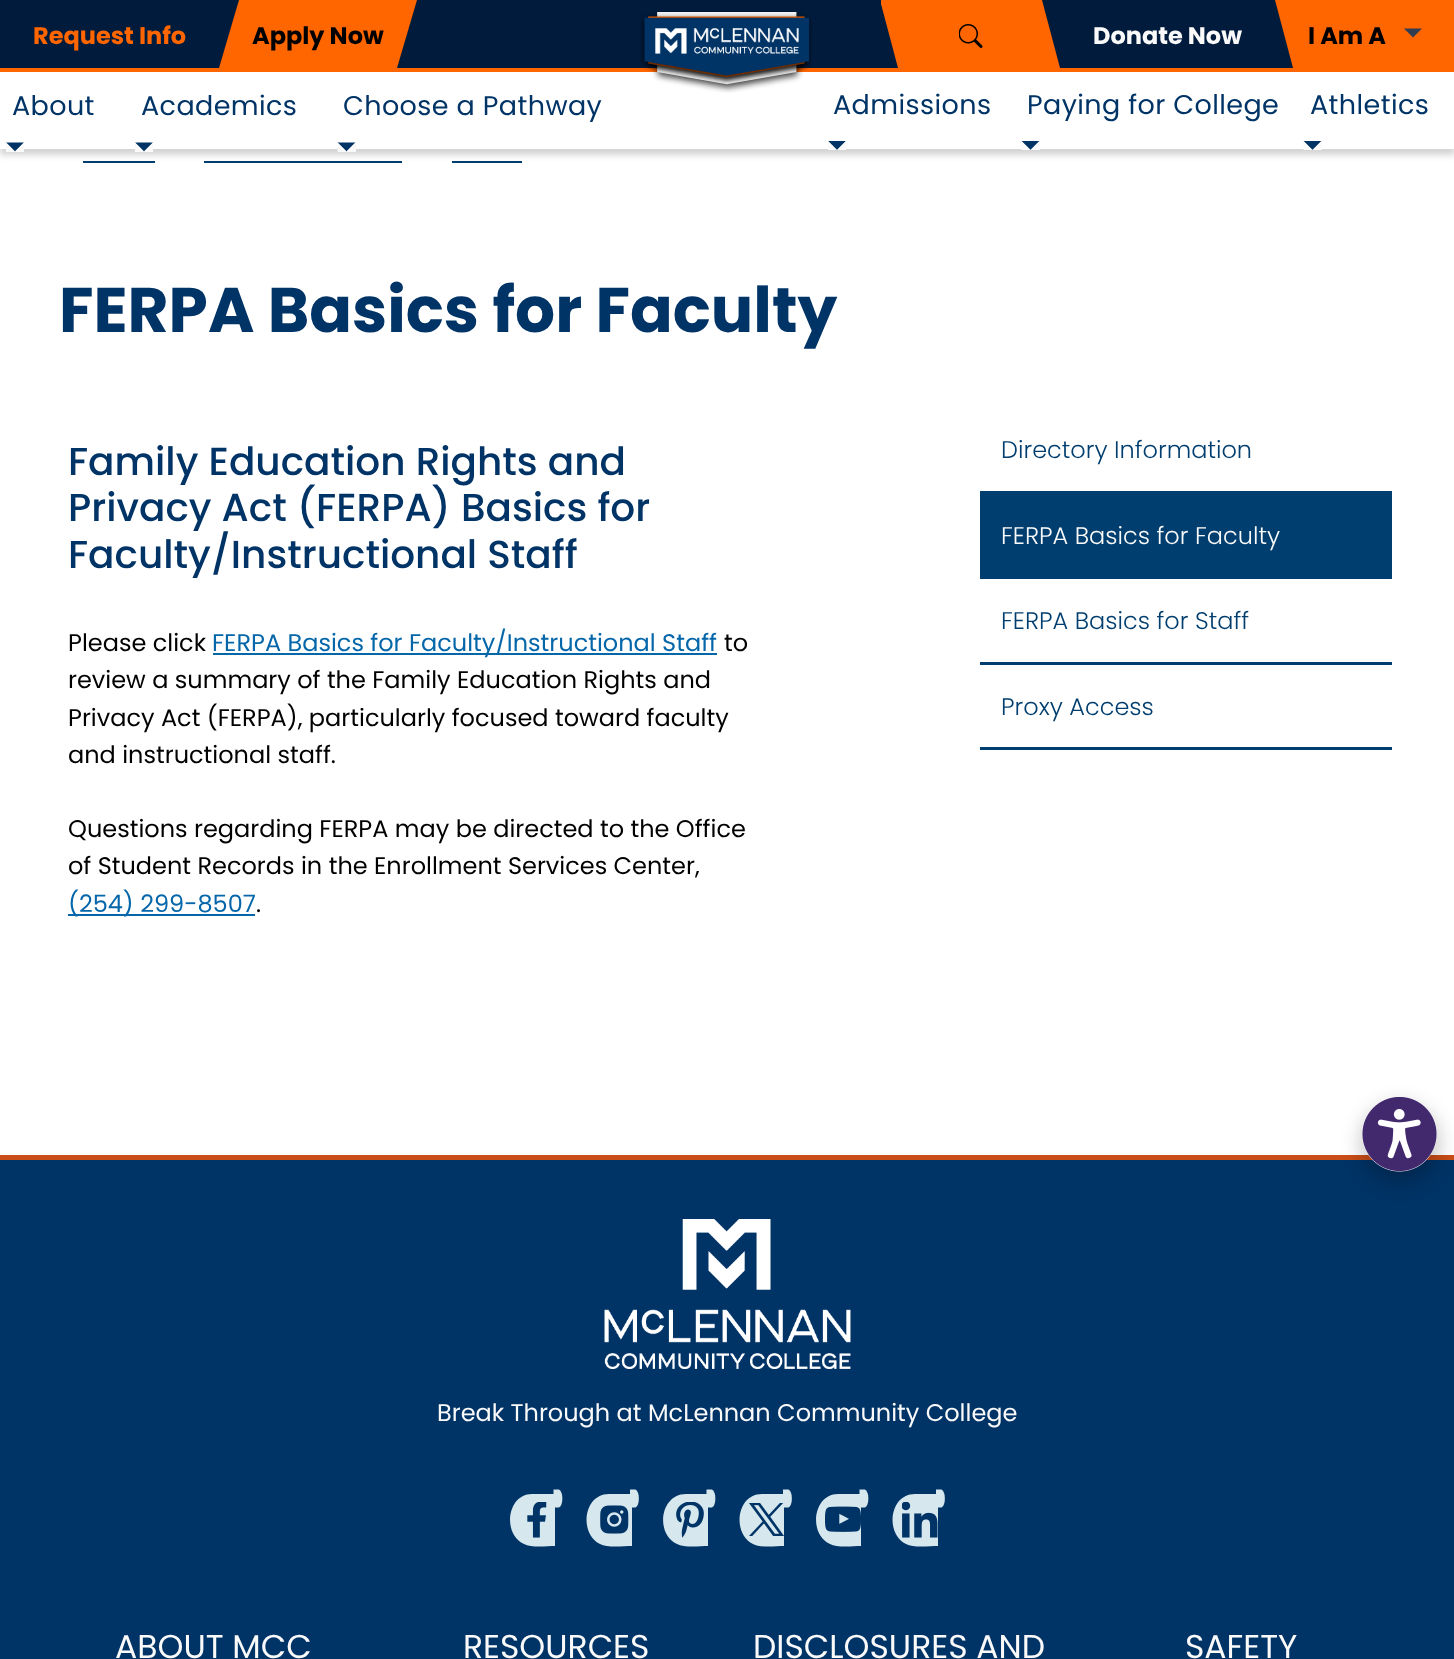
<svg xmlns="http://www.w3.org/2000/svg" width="1454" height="1659">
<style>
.a{font:bold 24px Poppins;fill:#f60}
.b{font:bold 24px Poppins;fill:#000}
.c{font:bold 24px Poppins;fill:#fafafa}
.d{font:27px Poppins;letter-spacing:0.4px;fill:#036}
.e{font:bold 63px Poppins;fill:#036}
.f{font:500 39px Poppins;fill:#036}
.g{font:24px Poppins;fill:#000}
.h{font:24px Poppins;fill:#0567aa}
.i{font:300 24px Poppins;fill:#003e6f}
.j{font:300 24px Poppins;fill:#fafafa}
.k{font:24px Poppins;fill:#fafafa}
.l{font:33px Poppins;fill:#fafafa}
</style>
<rect width="100%" height="100%" fill="#fff"/>
<path fill="#003e6f" d="M83 161h72v2H83z"/>
<path fill="#003e6f" d="M204 161h198v2H204z"/>
<path fill="#003e6f" d="M452 161h70v2H452z"/>
<path fill="#21252933" filter="blur(3px)" d="M0 6h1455v149H0z"/>
<path fill="#001b3b" d="M0 0h1293v68H0z"/>
<path fill="#f60" d="M0 68h1454v4H0z"/>
<path fill="#fff" d="M0 72h1454v77H0z"/>
<image href="1.png" x="640" y="11" width="172" height="82"/>
<path fill="#f60" d="M239 0l-20 68h178l20-68z"/>
<path fill="#f60" d="M881 0v4l17 64h162l-18-68z"/>
<image href="2.png" x="959" y="24" width="24" height="24"/>
<path fill="#f60" d="M1275 0l18 68h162v-68z"/>
<path fill="#333d52" d="M1404 28.5h18l-9 9z"/>
<path fill="#fafafa" d="M6 143h18v9H6z"/>
<path fill="#036" d="M6 142.5h18l-9 9z"/>
<path fill="#fafafa" d="M24 142.5v9h-9zm-18 9v-9l9 9z"/>
<path fill="#fafafa" d="M135 143h18v9H135z"/>
<path fill="#036" d="M135 142.5h18l-9 9z"/>
<path fill="#fafafa" d="M153 142.5v9h-9zm-18 9v-9l9 9z"/>
<path fill="#fafafa" d="M338 143h18v9H338z"/>
<path fill="#036" d="M337.5 142.5h18l-9 9z"/>
<path fill="#fafafa" d="M355.5 142.5v9h-9z"/>
<path fill="#fafafa" d="M337.5 151.5v-9l9 9z"/>
<path fill="#036" d="M828 141h18l-9 9z"/>
<path fill="#fafafa" d="M846 141v9h-9zm-18 9v-9l9 9z"/>
<path fill="#fafafa" d="M1022 141h18v9H1022z"/>
<path fill="#036" d="M1021.5 141h18l-9 9z"/>
<path fill="#fafafa" d="M1039.5 141v9h-9z"/>
<path fill="#fafafa" d="M1021.5 150v-9l9 9z"/>
<path fill="#fafafa" d="M1304 141h18v9H1304z"/>
<path fill="#036" d="M1303.5 141h18l-9 9z"/>
<path fill="#fafafa" d="M1321.5 141v9h-9z"/>
<path fill="#fafafa" d="M1303.5 150v-9l9 9z"/>
<path fill="#0567aa" d="M213 653h504v2H213z"/>
<path fill="#0567aa" d="M68 914h187v2H68z"/>
<path fill="#003e6f" d="M980 491h412v3H980z"/>
<path fill="#003e6f" d="M980 494h412v85H980z"/>
<path fill="#003e6f" d="M980 662h412v3H980z"/>
<path fill="#003e6f" d="M980 747h412v3H980z"/>
<path fill="#036" d="M0 1160h1454v499H0z"/>
<path fill="#c94d18" d="M0 1155h1454v5H0z"/>
<rect fill="#0000003b" filter="blur(10px)" x="1361" y="1104" width="78" height="78" rx="39"/>
<image href="3.png" x="1362" y="1097" width="75" height="75"/>
<image href="4.png" x="604" y="1219" width="247" height="150"/>
<path fill="#d6e8ee" d="M532 1494h23v52c-8 0-24 2-31-2c-22-10-17-50 8-50z"/>
<path fill="#d6e8ee" d="M553.5 1489.5h5.5c4.5 2 4.5 16 0 18h-5.5z"/>
<image href="5.png" x="527" y="1502" width="20" height="36"/>
<path fill="#d6e8ee" d="M609 1494h23v52c-9 0-25 2-32-2c-21-10-17-50 9-50z"/>
<path fill="#d6e8ee" d="M630 1489.5h5.5c4.5 2 4.5 16 0 18h-5.5z"/>
<image href="6.png" x="600" y="1505" width="29" height="29"/>
<path fill="#d6e8ee" d="M686 1494h22v52c-8 0-24 2-31-2c-22-10-17-50 9-50z"/>
<path fill="#d6e8ee" d="M706.5 1489.5h5.5c4.5 2 4.5 16 0 18h-5.5z"/>
<image href="7.png" x="676" y="1502" width="28" height="36"/>
<path fill="#d6e8ee" d="M762 1494h22v52c-8 0-24 2-31-2c-21-10-17-50 9-50z"/>
<path fill="#d6e8ee" d="M783 1489.5h5.5c4.5 2 4.5 16 0 18h-5.5z"/>
<image href="8.png" x="749" y="1503" width="35" height="33"/>
<path fill="#d6e8ee" d="M838 1494h23v52c-8 0-24 2-31-2c-22-10-17-50 8-50z"/>
<path fill="#d6e8ee" d="M859.5 1489.5h5.5c4.5 2 4.5 16 0 18h-5.5z"/>
<image href="9.png" x="825" y="1506" width="36" height="26"/>
<path fill="#d6e8ee" d="M915 1494h23v52c-9 0-25 2-32-2c-21-10-17-50 9-50z"/>
<path fill="#d6e8ee" d="M936 1489.5h5.5c4.5 2 4.5 16 0 18h-5.5z"/>
<image href="10.png" x="902" y="1502" width="36" height="36"/>
<text class="a" x="33" y="44">Request Info</text>
<text class="b" x="252" y="44">Apply Now</text>
<text class="c" x="1093" y="44">Donate Now</text>
<text class="b" x="1308" y="44">I Am A</text>
<text class="d" x="12" y="115">About</text>
<text class="d" x="141" y="115">Academics</text>
<text class="d" x="343" y="115">Choose a Pathway</text>
<text class="d" x="833" y="114">Admissions</text>
<text class="d" x="1027" y="114">Paying for College</text>
<text class="d" x="1310" y="114">Athletics</text>
<text class="e" x="59" y="332">FERPA Basics for Faculty</text>
<text class="f" x="68" y="475">Family Education Rights and</text>
<text class="f" x="68" y="521">Privacy Act (FERPA) Basics for</text>
<text class="f" x="68" y="568">Faculty/Instructional Staff</text>
<text class="g" x="68" y="651">Please click</text>
<text class="h" x="212" y="651">FERPA Basics for Faculty/Instructional Staff</text>
<text class="g" x="724" y="651">to</text>
<text class="g" x="68" y="688">review a summary of the Family Education Rights and</text>
<text class="g" x="68" y="726">Privacy Act (FERPA), particularly focused toward faculty</text>
<text class="g" x="68" y="763">and instructional staff.</text>
<text class="g" x="68" y="837">Questions regarding FERPA may be directed to the Office</text>
<text class="g" x="68" y="874">of Student Records in the Enrollment Services Center,</text>
<text class="h" x="68" y="912">(254) 299-8507</text>
<text class="g" x="256" y="912">.</text>
<text class="i" x="1001" y="458">Directory Information</text>
<text class="j" x="1001" y="544">FERPA Basics for Faculty</text>
<text class="i" x="1001" y="629">FERPA Basics for Staff</text>
<text class="i" x="1001" y="715">Proxy Access</text>
<text class="k" x="437" y="1421">Break Through at McLennan Community College</text>
<text class="l" x="115" y="1658">ABOUT MCC</text>
<text class="l" x="463" y="1658">RESOURCES</text>
<text class="l" x="753" y="1658">DISCLOSURES AND</text>
<text class="l" x="1185" y="1658">SAFETY</text>
</svg>
